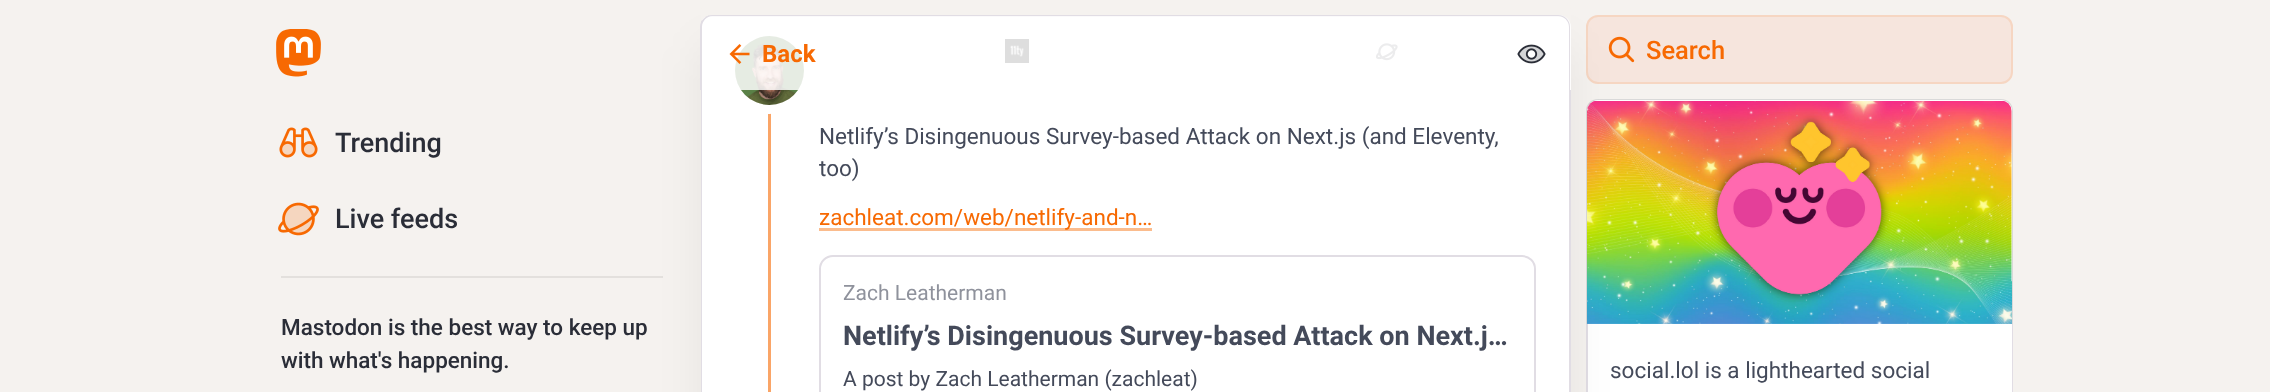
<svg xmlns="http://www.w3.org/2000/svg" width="2270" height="392">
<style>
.a{font:500 27px Roboto;fill:#2a2d37}
.b{font:500 22.5px Roboto;fill:#2a2d37}
.c{font:bold 24px Roboto;fill:#f76902}
.d{font:22.5px Roboto;fill:#444a5a}
.e{font:22.5px Roboto;fill:#f76902}
.f{font:21px Roboto;fill:#8f929c}
.g{font:bold 27px Roboto;fill:#444a5a}
.h{font:21px Roboto;fill:#444a5a}
.i{font:500 25.5px Roboto;fill:#f76902}
</style>
<rect width="100%" height="100%" fill="#f5f2ef"/>
<image href="1.png" x="276" y="29" width="45" height="48"/>
<image href="2.png" x="279" y="127" width="39" height="31"/>
<image href="3.png" x="278" y="202" width="41" height="34"/>
<path fill="#e3e0dd" d="M281 276h382v2H281z"/>
<rect fill="#f6e5dd" x="1586" y="15" width="427" height="69" rx="12"/>
<rect fill="none" stroke="#f769021f" stroke-width="2" x="1587" y="16" width="425" height="67" rx="11"/>
<image href="9.png" x="1608" y="36" width="27" height="27"/>
<path fill="#fff" d="M1598 99h403c6.5 0 12 5.5 12 12v213h-427v-213c0-6.5 5.5-12 12-12z"/>
<path fill="#00000026" fill-rule="evenodd" d="M1598 99h403c7 0 12 5 12 12v213h-427v-213c0-7 5-12 12-12zm0 1h403c6 0 11 5 11 11v213h-425v-213c0-6 5-11 11-11z"/>
<image href="10.png" x="1587" y="101" width="425" height="223"/>
<path fill="#fff" d="M1588 324h424v68H1588z"/>
<path fill="#e1dde4" d="M1586 324h2v68H1586z"/>
<rect fill="#0000000f" filter="blur(22.5px)" x="701" y="45" width="870" height="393" rx="15"/>
<path fill="#e1dde4" d="M1569 15h2v377H1569z"/>
<path fill="#e1dde4" d="M701 15h1v377H701z"/>
<path fill="#fff" d="M702 17h867v375H702z"/>
<path fill="#e1dde4" d="M702 15h867v2H702z"/>
<path fill="#faa567" d="M768 104h3v288H768z"/>
<circle fill="none" stroke="#fff" stroke-width="9" cx="769.5" cy="70.5" r="39"/>
<circle fill="#f9f6f4" cx="769.5" cy="70.5" r="34.5"/>
<image href="6.png" x="735" y="36" width="69" height="69"/>
<image href="7.png" x="1005" y="39" width="24" height="24"/>
<image href="8.png" x="1376" y="43" width="22" height="18"/>
<path fill="#f5f2ef" d="M713-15c-14 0-12 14-12 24c1-5 6-9 11-9h846c7 0 12 5 12 12v63h1v-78c0-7-5-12-12-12z"/>
<path fill="#f5f2ef" d="M712 15h846c7 0 12 5 12 12v63h1v-78c0-7-5-12-12-12h-846c-7 0-12 5-12 12v10c2-4 6-7 11-7z"/>
<path fill="#ffffffd9" d="M713 15h846c6.5 0 12 5.5 12 12v63h-870v-63c0-6.5 5.5-12 12-12z"/>
<path fill="#e1dde4" fill-rule="evenodd" d="M712 15h846c7 0 12 5 12 12v63h-870v-63c0-7 6-12 12-12zm0 1h846c6 0 11 5 11 11v63h-867v-63c0-6 5-11 10-11z"/>
<image href="4.png" x="729" y="44" width="21" height="20"/>
<image href="5.png" x="1517" y="44" width="29" height="20"/>
<path fill="#fbbc8d" d="M819 228h333v3H819z"/>
<rect fill="none" stroke="#e1dde4" stroke-width="2" x="820" y="256" width="715" height="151" rx="13"/>
<path fill="#e1dde4" d="M2012 324h1v68H2012z"/>
<text class="a" x="335" y="152">Trending</text>
<text class="a" x="335" y="228">Live feeds</text>
<text class="b" x="281" y="335">Mastodon is the best way to keep up</text>
<text class="b" x="281" y="368">with what's happening.</text>
<text class="c" x="762" y="62">Back</text>
<text class="d" x="819" y="144">Netlify’s Disingenuous Survey-based Attack on Next.js (and Eleventy,</text>
<text class="d" x="819" y="176">too)</text>
<text class="e" x="819" y="225">zachleat.com/web/netlify-and-n…</text>
<text class="f" x="843" y="300">Zach Leatherman</text>
<text class="g" x="843" y="345">Netlify’s Disingenuous Survey-based Attack on Next.j…</text>
<text class="h" x="843" y="386">A post by Zach Leatherman (zachleat)</text>
<text class="i" x="1646" y="59">Search</text>
<text class="d" x="1610" y="378">social.lol is a lighthearted social</text>
</svg>
